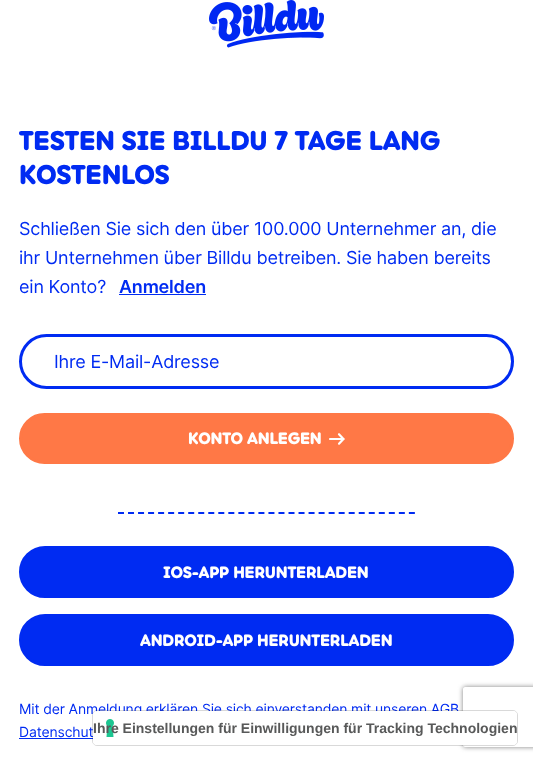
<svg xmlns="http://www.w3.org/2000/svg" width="533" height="761">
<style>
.a{font:900 28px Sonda;letter-spacing:-0.25px;fill:#002bf2}
.b{font:18px Inter;letter-spacing:-0.18px;fill:#002bf2}
.c{font:600 18px Inter;letter-spacing:-0.18px;fill:#002bf2}
.d{font:900 17px Sonda;letter-spacing:-0.2px;fill:#fff}
.e{font:14px Inter;letter-spacing:-0.15px;fill:#002bf2}
.f{font:bold 14px Liberation Sans;fill:#585959}
</style>
<defs>
<clipPath id="clip1"><path d="M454 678h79v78h-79zm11 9h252c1 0 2 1 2 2v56c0 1-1 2-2 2h-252c-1 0-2-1-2-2v-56c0-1 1-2 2-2z" clip-rule="evenodd"/></clipPath>
</defs>
<rect width="100%" height="100%" fill="#fff"/>
<image href="1.png" x="209" y="0" width="115" height="48"/>
<path fill="#002bf2" d="M119 294h87v1H119z"/>
<rect fill="none" stroke="#002bf2" stroke-width="3" x="20.5" y="335.5" width="492" height="52" rx="26"/>
<rect fill="#ff7846" stroke="#ff7846" stroke-width="3" x="20.5" y="414.5" width="492" height="48" rx="24"/>
<image href="2.png" x="329" y="433" width="16" height="12"/>
<g clip-path="url(#clip1)">
<rect fill="#808080" filter="blur(2.5px)" x="463" y="687" width="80" height="60" rx="2"/>
</g>
<path fill="none" stroke="#002bf2" stroke-width="2" stroke-dasharray="6 4.03" d="M118 513h297"/>
<rect fill="#002bf2" stroke="#002bf2" stroke-width="3" x="20.5" y="547.5" width="492" height="49" rx="24.5"/>
<rect fill="#002bf2" stroke="#002bf2" stroke-width="3" x="20.5" y="615.5" width="492" height="49" rx="24.5"/>
<path fill="#002bf2" d="M19 738h74v1H19z"/>
<text class="a" x="19" y="150">TESTEN SIE BILLDU 7 TAGE LANG</text>
<text class="a" x="19" y="184">KOSTENLOS</text>
<text class="b" x="19" y="235">Schließen Sie sich den über 100.000 Unternehmer an, die</text>
<text class="b" x="19" y="264">ihr Unternehmen über Billdu betreiben. Sie haben bereits</text>
<text class="b" x="19" y="293">ein Konto?</text>
<text class="c" x="119" y="293">Anmelden</text>
<text class="b" x="54" y="368">Ihre E-Mail-Adresse</text>
<text class="d" x="188" y="444">KONTO ANLEGEN</text>
<text class="d" x="163" y="578">IOS-APP HERUNTERLADEN</text>
<text class="d" x="140" y="646">ANDROID-APP HERUNTERLADEN</text>
<text class="e" x="19" y="714">Mit der Anmeldung erklären Sie sich einverstanden mit unseren AGB</text>
<text class="e" x="19" y="737">Datenschut</text>
<rect fill="none" stroke="#00000026" x="92.5" y="710.5" width="425" height="35" rx="4.5"/>
<rect fill="#fff" x="93" y="711" width="424" height="34" rx="4"/>
<image href="3.png" x="106" y="719" width="8" height="18"/>
<text class="f" x="93" y="733">Ihre Einstellungen für Einwilligungen für Tracking Technologien</text>
</svg>
